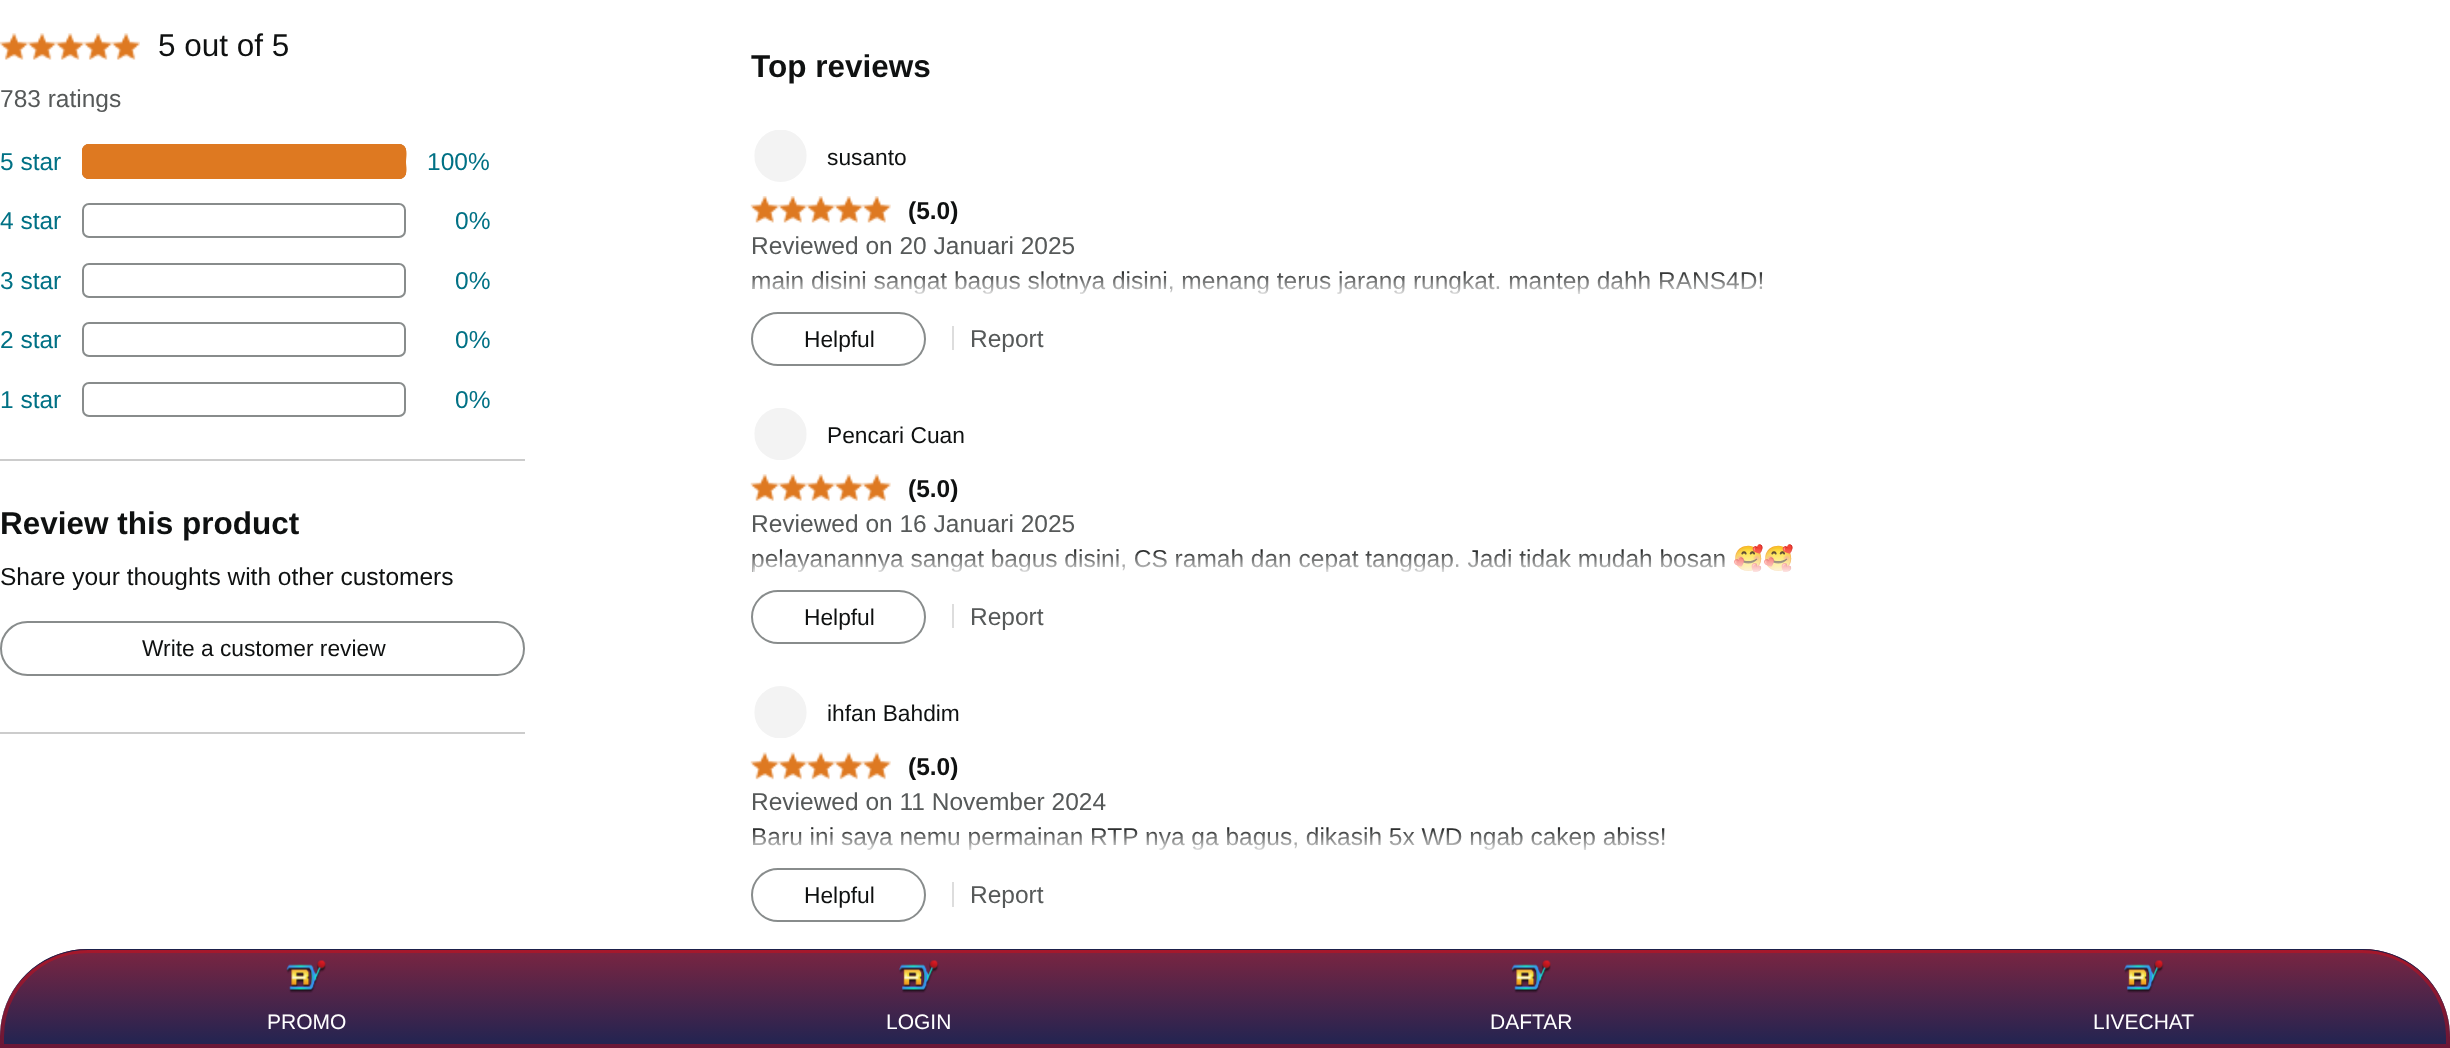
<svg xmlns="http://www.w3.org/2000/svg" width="2450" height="1048">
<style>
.a{font:31.5px Liberation Sans;fill:#0f1111}
.b{font:24.5px Liberation Sans;fill:#565959}
.c{font:24.5px Liberation Sans;fill:#007185}
.d{font:bold 31.5px Liberation Sans;fill:#0f1111}
.e{font:24.5px Liberation Sans;fill:#0f1111}
.f{font:22.75px Liberation Sans;fill:#0f1111}
.g{font:bold 24.5px Liberation Sans;fill:#0f1111}
.h{font:24.5px Noto Color Emoji;fill:#0f1111}
.i{font:21px Liberation Sans;fill:#fff}
</style>
<defs>
<linearGradient id="g1" gradientUnits="userSpaceOnUse" x1="1225" y1="948" x2="1225" y2="1048"><stop offset="0" stop-color="#7c2541"/><stop offset="1" stop-color="#1f2452"/></linearGradient>
<linearGradient id="g2" gradientUnits="userSpaceOnUse" x1="1346" y1="269" x2="1346" y2="298"><stop offset="0" stop-color="#fff" stop-opacity="0"/><stop offset="1" stop-color="#fff"/></linearGradient>
<linearGradient id="g3" gradientUnits="userSpaceOnUse" x1="1346" y1="548" x2="1346" y2="576"><stop offset="0" stop-color="#fff" stop-opacity="0"/><stop offset="1" stop-color="#fff"/></linearGradient>
<linearGradient id="g4" gradientUnits="userSpaceOnUse" x1="1346" y1="826" x2="1346" y2="854"><stop offset="0" stop-color="#fff" stop-opacity="0"/><stop offset="1" stop-color="#fff"/></linearGradient>
</defs>
<rect width="100%" height="100%" fill="#fff"/>
<image href="1.png" x="0" y="33" width="140" height="27"/>
<rect fill="none" stroke="#888c8c" stroke-width="2" x="83" y="145" width="322" height="33" rx="6"/>
<rect fill="#de7921" x="82" y="144" width="324" height="35" rx="7"/>
<path fill="#de7921" fill-rule="evenodd" d="M89 144c-4 0-7 3-7 7v21c0 4 3 7 7 7h310c2 0 4-1 5-2h-315c-3 0-5-2-5-5v-21c0-3 2-5 5-5h315c-1-1-3-2-5-2zm315 2v31c4-4 2-11 2-15c0-5 2-12-2-16z"/>
<path fill="#de7921" d="M404 177c1-1.5 2-3 2-5v-21c0-2-1-3.5-2-5z"/>
<rect fill="none" stroke="#888c8c" stroke-width="2" x="83" y="204" width="322" height="33" rx="6"/>
<rect fill="none" stroke="#888c8c" stroke-width="2" x="83" y="264" width="322" height="33" rx="6"/>
<rect fill="none" stroke="#888c8c" stroke-width="2" x="83" y="323" width="322" height="33" rx="6"/>
<rect fill="none" stroke="#888c8c" stroke-width="2" x="83" y="383" width="322" height="33" rx="6"/>
<path fill="#ccc" d="M0 459h525v2H0z"/>
<rect fill="none" stroke="#888c8c" stroke-width="2" x="1" y="622" width="523" height="53" rx="26.5"/>
<path fill="#ccc" d="M0 732h525v2H0z"/>
<image href="2.png" x="754" y="130" width="53" height="52"/>
<image href="3.png" x="750" y="196" width="141" height="27"/>
<rect fill="none" stroke="#888c8c" stroke-width="2" x="752" y="313" width="173" height="52" rx="26"/>
<path fill="#ddd" d="M952 326h2v24H952z"/>
<image href="4.png" x="754" y="408" width="53" height="52"/>
<image href="5.png" x="750" y="474" width="141" height="27"/>
<rect fill="none" stroke="#888c8c" stroke-width="2" x="752" y="591" width="173" height="52" rx="26"/>
<path fill="#ddd" d="M952 604h2v24H952z"/>
<image href="6.png" x="754" y="686" width="53" height="52"/>
<image href="7.png" x="750" y="752" width="141" height="28"/>
<rect fill="none" stroke="#888c8c" stroke-width="2" x="752" y="869" width="173" height="52" rx="26"/>
<path fill="#ddd" d="M952 882h2v25H952z"/>
<path fill="url(#g1)" d="M88 949h2274c48.5 0 88 39.5 88 88v11h-2450v-11c0-48.5 39.5-88 88-88z"/>
<path fill="none" stroke="#ff000054" stroke-width="4" d="M88 951h2274c47.5 0 86 38.5 86 86v9h-2446v-9c0-47.5 38.5-86 86-86z"/>
<path fill="#1d214b" d="M88 950h2274c49 0 88 39 88 88v-1c0-49-39-88-88-88h-2274c-49 0-88 39-88 88v1c0-49 39-88 88-88z"/>
<image href="8.png" x="286" y="960" width="40" height="33"/>
<image href="9.png" x="899" y="960" width="40" height="33"/>
<image href="8.png" x="1511" y="960" width="40" height="33"/>
<image href="9.png" x="2124" y="960" width="40" height="33"/>
<text class="a" x="158" y="56">5 out of 5</text>
<text class="b" x="0" y="107">783 ratings</text>
<text class="c" x="0" y="170">5 star</text>
<text class="c" x="427" y="170">100%</text>
<text class="c" x="0" y="229">4 star</text>
<text class="c" x="455" y="229">0%</text>
<text class="c" x="0" y="289">3 star</text>
<text class="c" x="455" y="289">0%</text>
<text class="c" x="0" y="348">2 star</text>
<text class="c" x="455" y="348">0%</text>
<text class="c" x="0" y="408">1 star</text>
<text class="c" x="455" y="408">0%</text>
<text class="d" x="0" y="534">Review this product</text>
<text class="e" x="0" y="585">Share your thoughts with other customers</text>
<text class="f" x="142" y="656">Write a customer review</text>
<text class="d" x="751" y="77">Top reviews</text>
<text class="f" x="827" y="165">susanto</text>
<text class="g" x="908" y="219">(5.0)</text>
<text class="b" x="751" y="254">Reviewed on 20 Januari 2025</text>
<text class="e" x="751" y="289">main disini sangat bagus slotnya disini, menang terus jarang rungkat. mantep dahh RANS4D!</text>
<path fill="url(#g2)" d="M753 271h1010v24H753z"/>
<text class="f" x="804" y="347">Helpful</text>
<text class="b" x="970" y="347">Report</text>
<text class="f" x="827" y="443">Pencari Cuan</text>
<text class="g" x="908" y="497">(5.0)</text>
<text class="b" x="751" y="532">Reviewed on 16 Januari 2025</text>
<text class="e" x="751" y="567">pelayanannya sangat bagus disini, CS ramah dan cepat tanggap. Jadi tidak mudah bosan</text>
<text class="h" x="1733" y="567">🥰🥰</text>
<path fill="url(#g3)" d="M753 549h1041v24H753z"/>
<text class="f" x="804" y="625">Helpful</text>
<text class="b" x="970" y="625">Report</text>
<text class="f" x="827" y="721">ihfan Bahdim</text>
<text class="g" x="908" y="775">(5.0)</text>
<text class="b" x="751" y="810">Reviewed on 11 November 2024</text>
<text class="e" x="751" y="845">Baru ini saya nemu permainan RTP nya ga bagus, dikasih 5x WD ngab cakep abiss!</text>
<path fill="url(#g4)" d="M753 827h912v24H753z"/>
<text class="f" x="804" y="903">Helpful</text>
<text class="b" x="970" y="903">Report</text>
<text class="i" x="267" y="1029">PROMO</text>
<text class="i" x="886" y="1029">LOGIN</text>
<text class="i" x="1490" y="1029">DAFTAR</text>
<text class="i" x="2093" y="1029">LIVECHAT</text>
</svg>
